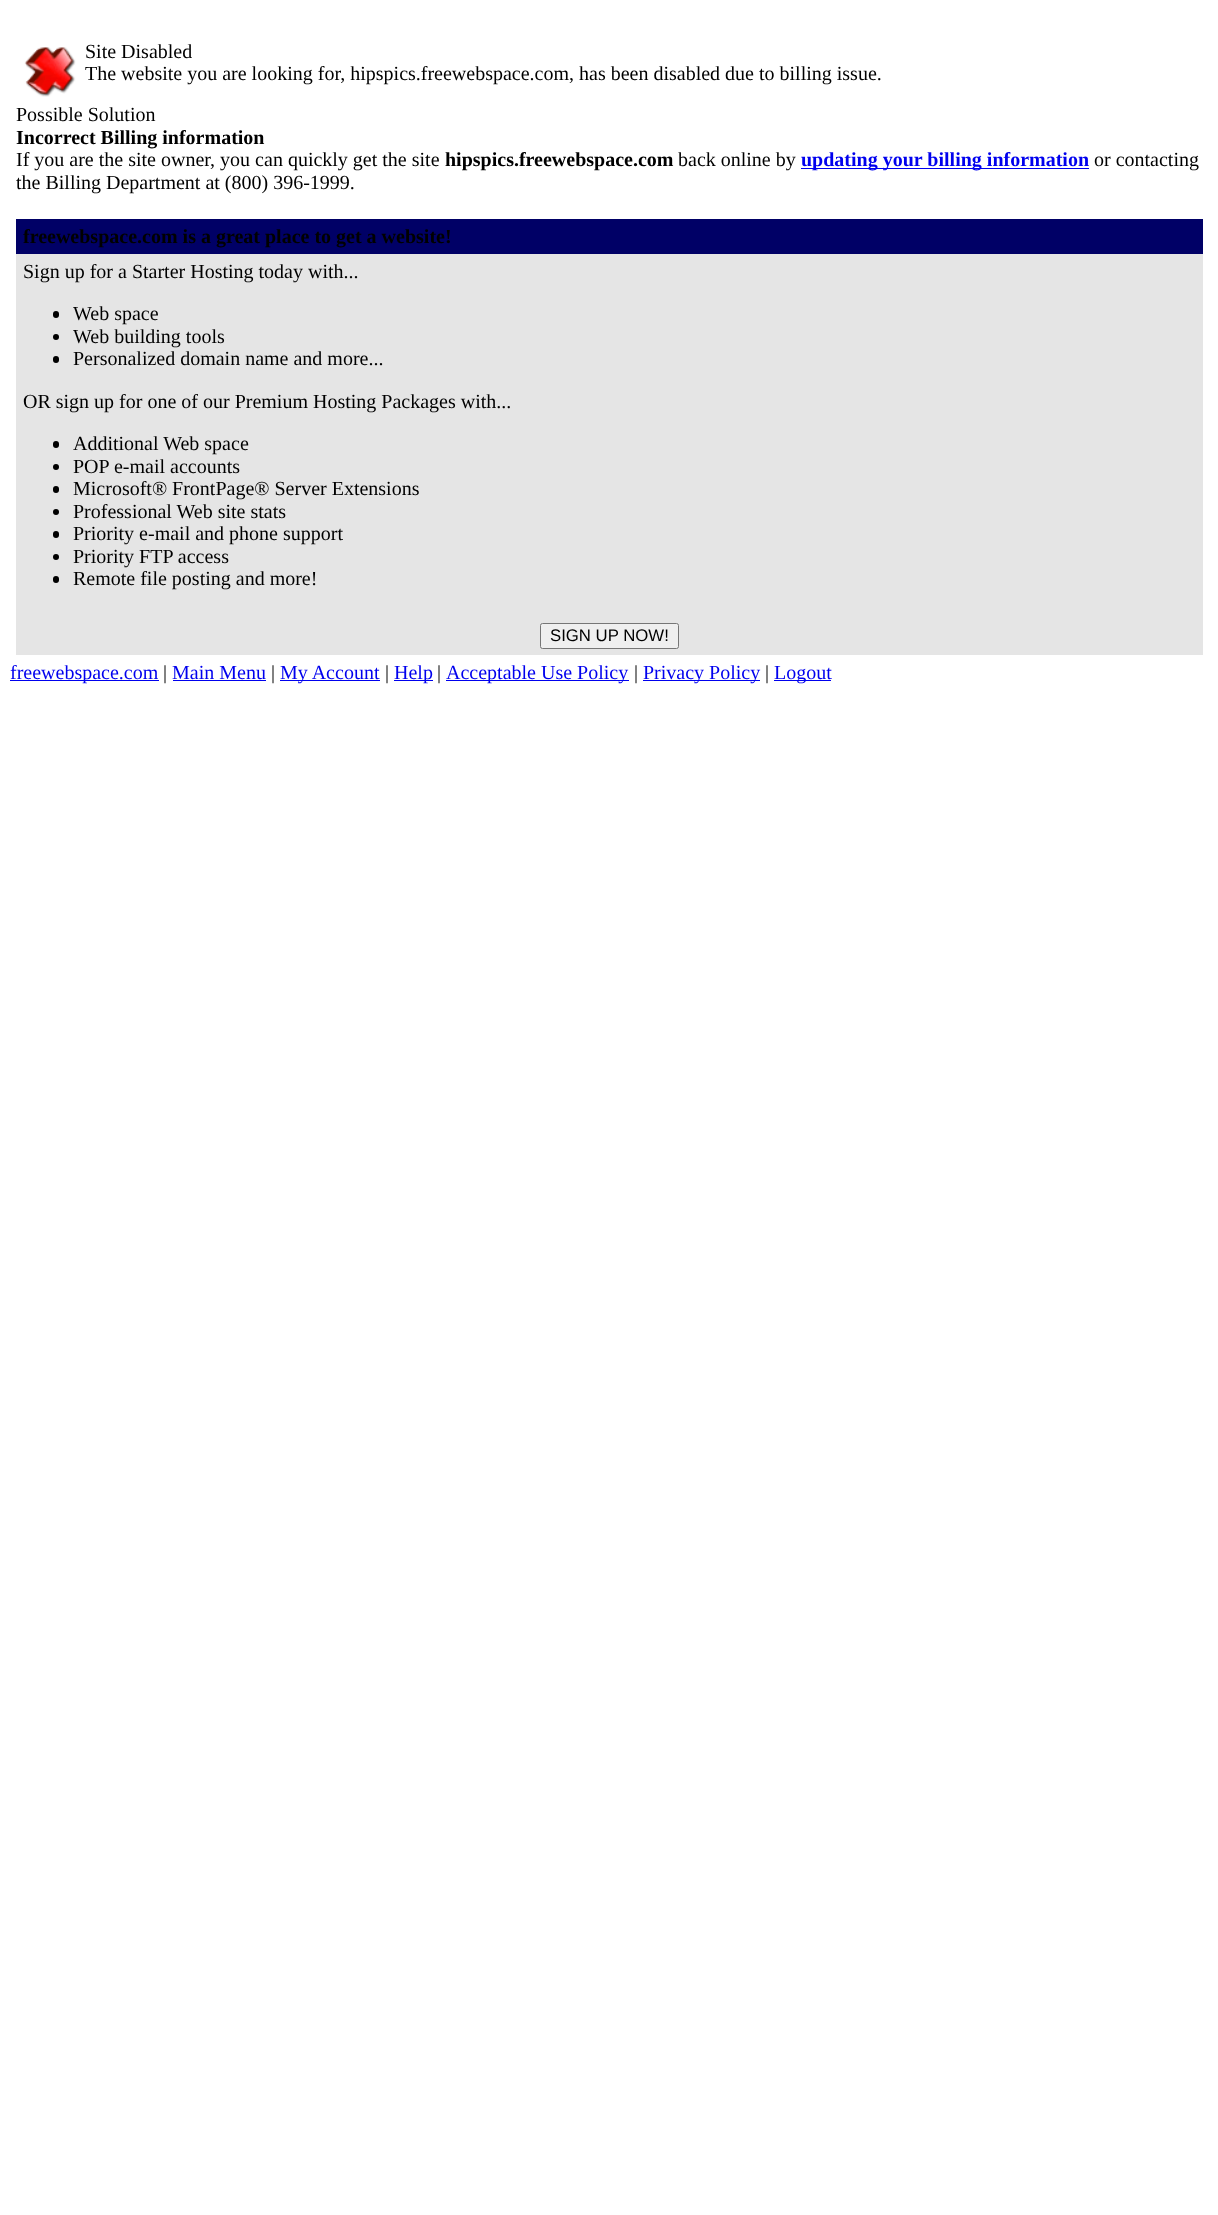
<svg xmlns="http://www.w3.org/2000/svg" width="1218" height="2215">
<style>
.a{font:20px Liberation Serif;fill:#000}
.b{font:bold 20px Liberation Serif;fill:#000}
.c{font:bold 20px Liberation Serif;fill:#00e}
.d{font:16.75px Liberation Sans;fill:#000}
.e{font:20px Liberation Serif;fill:#00e}
</style>
<rect width="100%" height="100%" fill="#fff"/>
<image href="1.png" x="24" y="47" width="52" height="50"/>
<path fill="#00e" d="M801 168h288v1H801z"/>
<path fill="#006" d="M16 219h1187v35H16z"/>
<path fill="#e5e5e5" d="M16 254h1187v401H16z"/>
<rect fill="#000" x="53" y="311" width="6" height="7" rx="3"/>
<circle fill="#000" cx="56" cy="337" r="3"/>
<rect fill="#000" x="53" y="356" width="6" height="7" rx="3"/>
<rect fill="#000" x="53" y="441" width="6" height="7" rx="3"/>
<circle fill="#000" cx="56" cy="467" r="3"/>
<rect fill="#000" x="53" y="486" width="6" height="7" rx="3"/>
<circle fill="#000" cx="56" cy="512" r="3"/>
<rect fill="#000" x="53" y="531" width="6" height="7" rx="3"/>
<circle fill="#000" cx="56" cy="557" r="3"/>
<rect fill="#000" x="53" y="576" width="6" height="7" rx="3"/>
<rect fill="#efefef" stroke="#767676" x="540.5" y="623.5" width="138" height="25" rx="2"/>
<path fill="#00e" d="M10 680h149v1H10z"/>
<path fill="#00e" d="M173 680h93v1H173z"/>
<path fill="#00e" d="M280 680h100v1H280z"/>
<path fill="#00e" d="M394 680h39v1H394z"/>
<path fill="#00e" d="M446 680h183v1H446z"/>
<path fill="#00e" d="M643 680h117v1H643z"/>
<path fill="#00e" d="M774 680h57v1H774z"/>
<text class="a" x="85" y="58">Site Disabled</text>
<text class="a" x="85" y="80">The website you are looking for, hipspics.freewebspace.com, has been disabled due to billing issue.</text>
<text class="a" x="16" y="121">Possible Solution</text>
<text class="b" x="16" y="144">Incorrect Billing information</text>
<text class="a" x="16" y="166">If you are the site owner, you can quickly get the site</text>
<text class="b" x="445" y="166">hipspics.freewebspace.com</text>
<text class="a" x="678" y="166">back online by</text>
<text class="c" x="801" y="166">updating your billing information</text>
<text class="a" x="1094" y="166">or contacting</text>
<text class="a" x="16" y="189">the Billing Department at (800) 396-1999.</text>
<text class="b" x="23" y="243">freewebspace.com is a great place to get a website!</text>
<text class="a" x="23" y="278">Sign up for a Starter Hosting today with...</text>
<text class="a" x="73" y="320">Web space</text>
<text class="a" x="73" y="343">Web building tools</text>
<text class="a" x="73" y="365">Personalized domain name and more...</text>
<text class="a" x="23" y="408">OR sign up for one of our Premium Hosting Packages with...</text>
<text class="a" x="73" y="450">Additional Web space</text>
<text class="a" x="73" y="473">POP e-mail accounts</text>
<text class="a" x="73" y="495">Microsoft® FrontPage® Server Extensions</text>
<text class="a" x="73" y="518">Professional Web site stats</text>
<text class="a" x="73" y="540">Priority e-mail and phone support</text>
<text class="a" x="73" y="563">Priority FTP access</text>
<text class="a" x="73" y="585">Remote file posting and more!</text>
<text class="d" x="550" y="641">SIGN UP NOW!</text>
<text class="e" x="10" y="679">freewebspace.com</text>
<text class="a" x="163" y="679">|</text>
<text class="e" x="172" y="679">Main Menu</text>
<text class="a" x="271" y="679">|</text>
<text class="e" x="280" y="679">My Account</text>
<text class="a" x="385" y="679">|</text>
<text class="e" x="394" y="679">Help</text>
<text class="a" x="437" y="679">|</text>
<text class="e" x="446" y="679">Acceptable Use Policy</text>
<text class="a" x="634" y="679">|</text>
<text class="e" x="643" y="679">Privacy Policy</text>
<text class="a" x="765" y="679">|</text>
<text class="e" x="774" y="679">Logout</text>
</svg>
